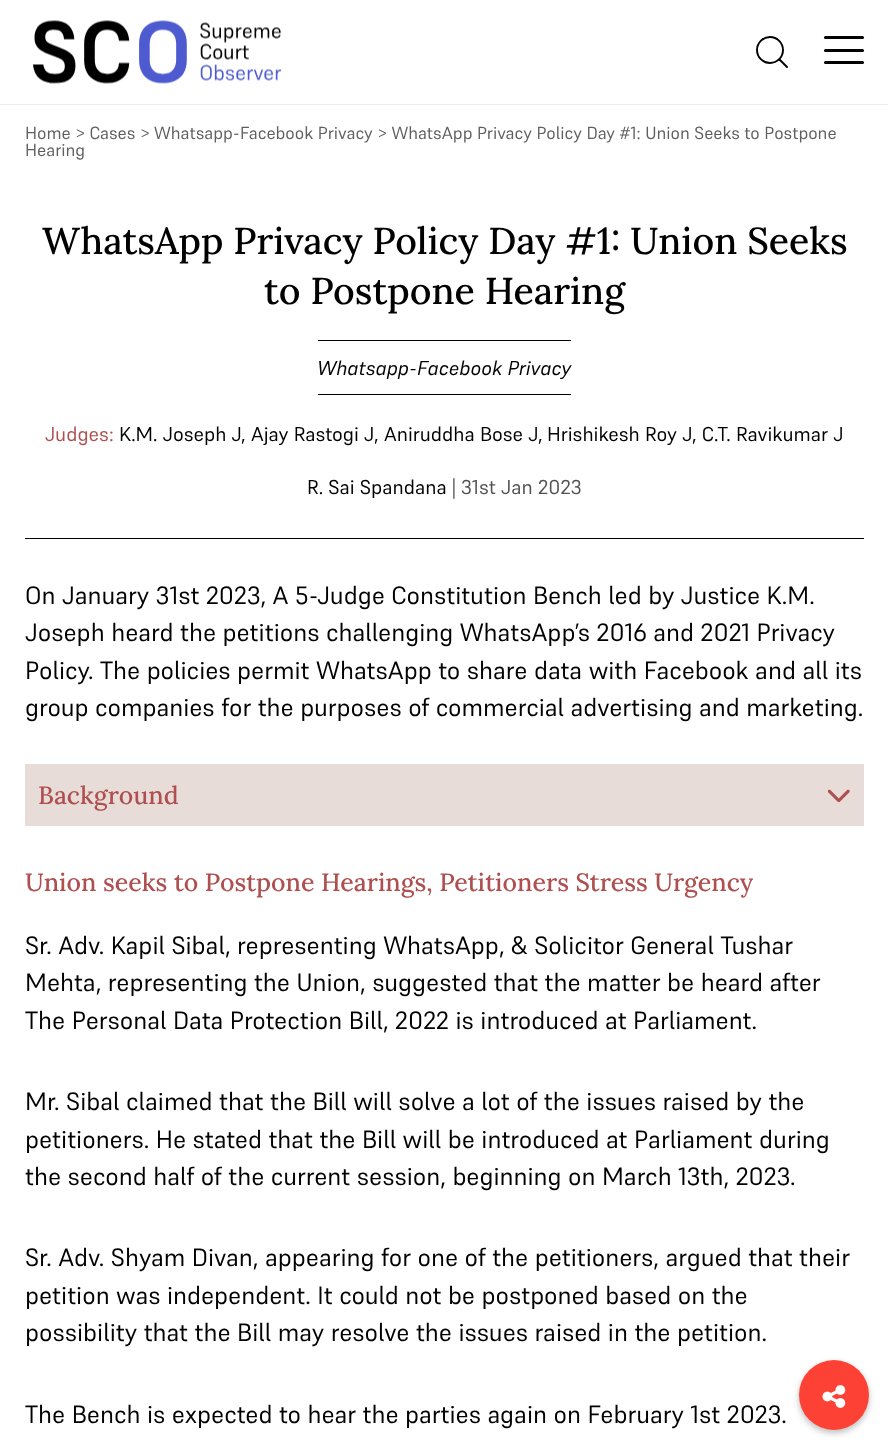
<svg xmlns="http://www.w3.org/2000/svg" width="888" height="1450">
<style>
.a{font:17.5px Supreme;fill:#5f5f5f}
.b{font:500 37.5px Lora;fill:#000}
.c{font:italic 20px Supreme;fill:#000}
.d{font:20px Supreme;fill:#af5050}
.e{font:20px Supreme;fill:#000}
.f{font:20px Supreme;fill:#525252}
.g{font:25px Supreme;fill:#000}
.h{font:500 25px Lora;fill:#af5050}
</style>
<rect width="100%" height="100%" fill="#fff"/>
<path fill="#ededed" d="M0 104h888v1H0z"/>
<image href="1.png" x="33" y="20" width="249" height="64"/>
<circle fill="none" stroke="#000" stroke-width="1.9" cx="770" cy="50" r="13"/>
<path fill="none" stroke="#000" stroke-width="1.9" stroke-linecap="round" d="M779.5 59.5l7.5 7.5"/>
<rect fill="#000" x="824" y="49" width="40" height="3" rx="1.5"/>
<rect fill="#000" x="824" y="36" width="40" height="3" rx="1.5"/>
<rect fill="#000" x="824" y="61" width="40" height="3" rx="1.5"/>
<path fill="#000" d="M25 538h839v1H25z"/>
<path fill="#000" d="M318 340h253v1H318z"/>
<path fill="#000" d="M318 394h253v1H318z"/>
<path fill="#e8dcd8" d="M25 764h839v62H25z"/>
<image href="2.png" x="827" y="789" width="23" height="14"/>
<rect fill="#00000042" filter="blur(3px)" x="799" y="1363" width="70" height="70" rx="35"/>
<circle fill="#fd4235" cx="834" cy="1395" r="35"/>
<image href="3.png" x="822" y="1385" width="24" height="23"/>
<text class="a" x="25" y="139">Home &gt; Cases &gt; Whatsapp-Facebook Privacy &gt; WhatsApp Privacy Policy Day #1: Union Seeks to Postpone</text>
<text class="a" x="25" y="156">Hearing</text>
<text class="b" x="42" y="254">WhatsApp Privacy Policy Day #1: Union Seeks</text>
<text class="b" x="264" y="304">to Postpone Hearing</text>
<text class="c" x="317" y="375">Whatsapp-Facebook Privacy</text>
<text class="d" x="45" y="441">Judges:</text>
<text class="e" x="119" y="441">K.M. Joseph J</text>
<text class="e" x="241" y="441">,</text>
<text class="e" x="251" y="441">Ajay Rastogi J</text>
<text class="e" x="374" y="441">,</text>
<text class="e" x="384" y="441">Aniruddha Bose J</text>
<text class="e" x="538" y="441">,</text>
<text class="e" x="547" y="441">Hrishikesh Roy J</text>
<text class="e" x="692" y="441">, C.T. Ravikumar J</text>
<text class="e" x="307" y="494">R. Sai Spandana</text>
<text class="f" x="452" y="494">| 31st Jan 2023</text>
<text class="g" x="25" y="604">On January 31st 2023, A 5-Judge Constitution Bench led by Justice K.M.</text>
<text class="g" x="25" y="641">Joseph heard the petitions challenging WhatsApp’s 2016 and 2021 Privacy</text>
<text class="g" x="25" y="679">Policy. The policies permit WhatsApp to share data with Facebook and all its</text>
<text class="g" x="25" y="716">group companies for the purposes of commercial advertising and marketing.</text>
<text class="h" x="38" y="804">Background</text>
<text class="h" x="25" y="891">Union seeks to Postpone Hearings, Petitioners Stress Urgency</text>
<text class="g" x="25" y="954">Sr. Adv. Kapil Sibal, representing WhatsApp, &amp; Solicitor General Tushar</text>
<text class="g" x="25" y="991">Mehta, representing the Union, suggested that the matter be heard after</text>
<text class="g" x="25" y="1029">The Personal Data Protection Bill, 2022 is introduced at Parliament.</text>
<text class="g" x="25" y="1110">Mr. Sibal claimed that the Bill will solve a lot of the issues raised by the</text>
<text class="g" x="25" y="1148">petitioners. He stated that the Bill will be introduced at Parliament during</text>
<text class="g" x="25" y="1185">the second half of the current session, beginning on March 13th, 2023.</text>
<text class="g" x="25" y="1266">Sr. Adv. Shyam Divan, appearing for one of the petitioners, argued that their</text>
<text class="g" x="25" y="1304">petition was independent. It could not be postponed based on the</text>
<text class="g" x="25" y="1341">possibility that the Bill may resolve the issues raised in the petition.</text>
<text class="g" x="25" y="1423">The Bench is expected to hear the parties again on February 1st 2023.</text>
</svg>
